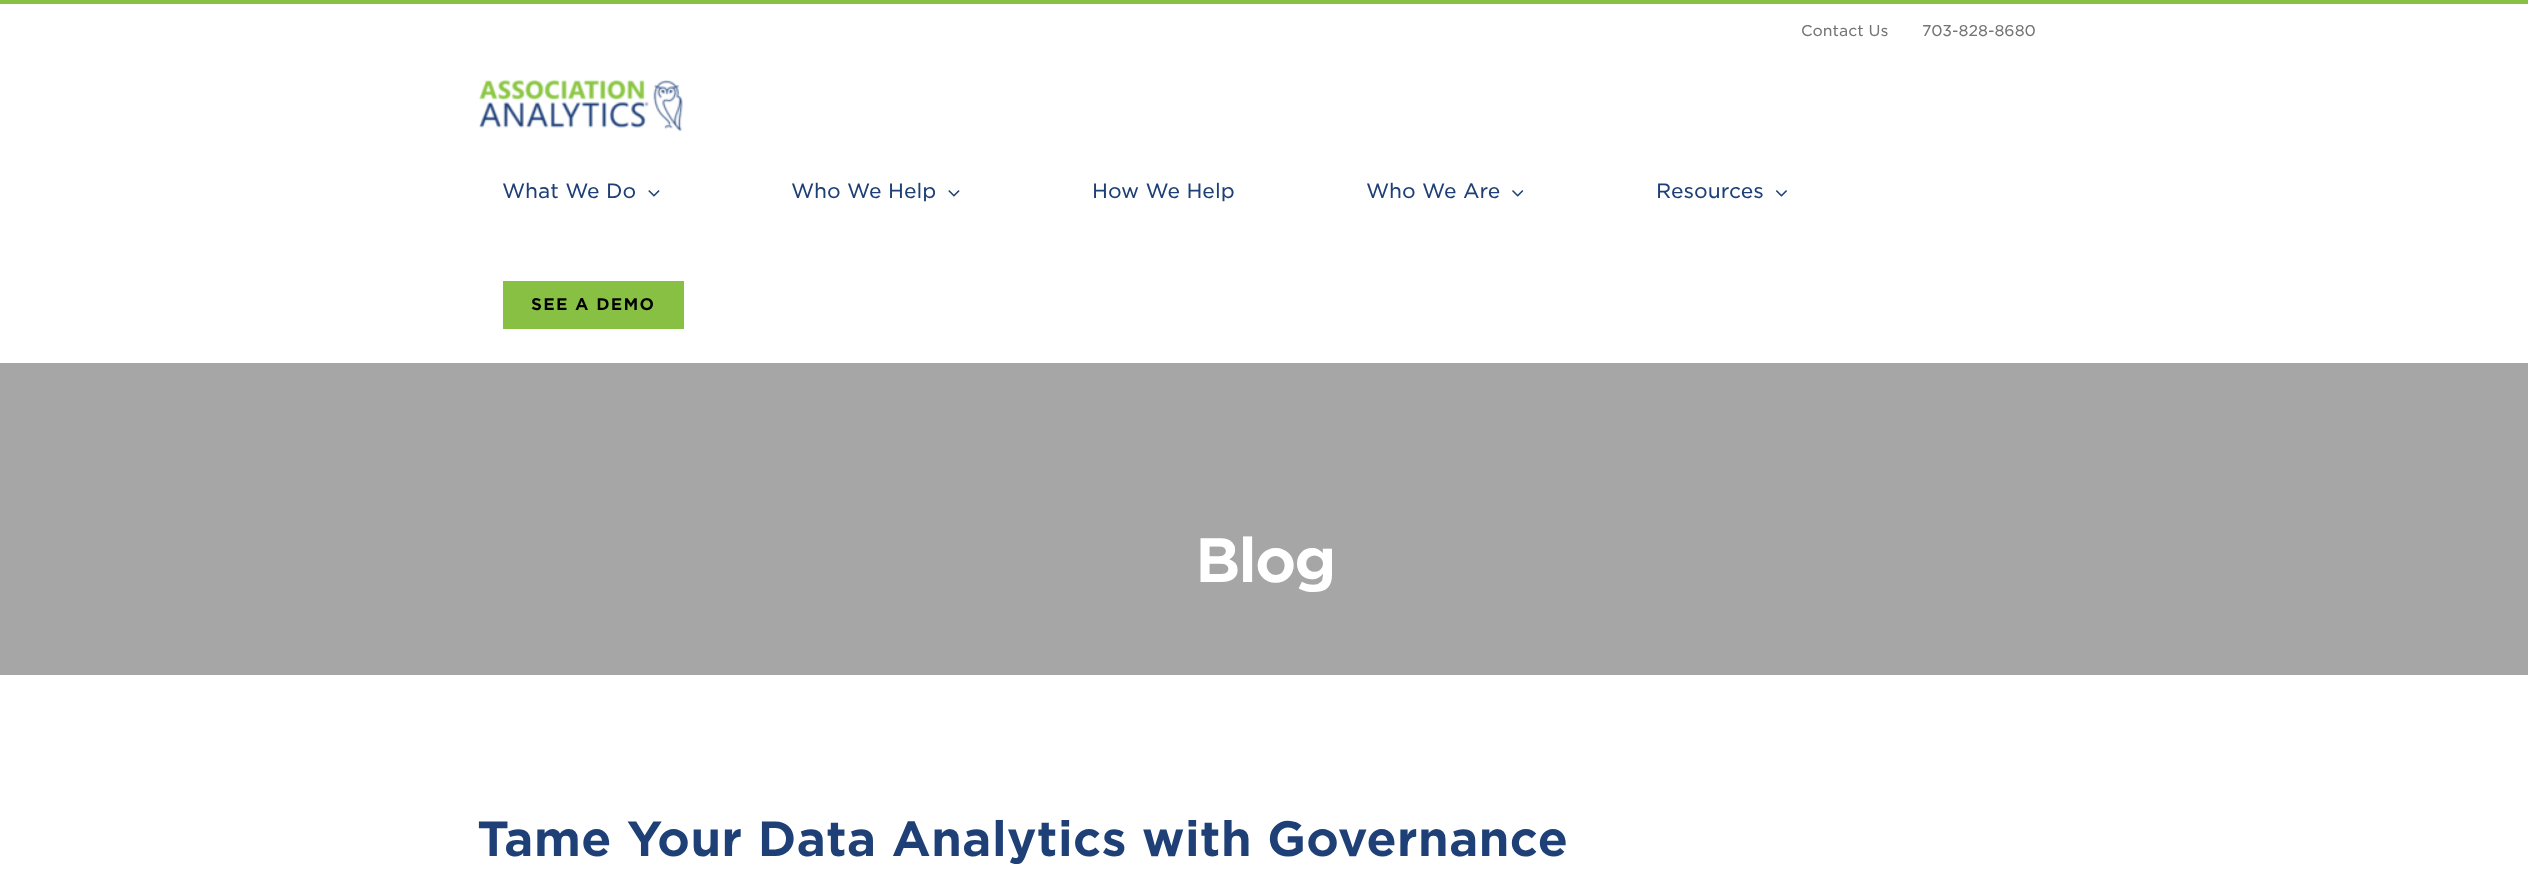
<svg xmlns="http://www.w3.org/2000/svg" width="2528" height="869">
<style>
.a{font:300 15px 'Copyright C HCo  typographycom';fill:#747474}
.b{font:300 20px 'Copyright C HCo  typographycom';fill:#1e4077}
.c{font:16.25px 'Copyright C HCo  typographycom';letter-spacing:1.25px;fill:#000}
.d{font:60px 'Copyright C HCo  typographycom';letter-spacing:-2.5px;fill:#fff}
.e{font:47.5px 'Copyright C HCo  typographycom';fill:#1e4077}
</style>
<rect width="100%" height="100%" fill="#fff"/>
<path fill="#87c042" d="M0 0h2528v4H0z"/>
<image href="1.png" x="478" y="79" width="205" height="53"/>
<image href="2.png" x="648" y="190" width="12" height="7"/>
<image href="2.png" x="948" y="190" width="12" height="7"/>
<image href="3.png" x="1512" y="190" width="12" height="7"/>
<image href="4.png" x="1775" y="190" width="12" height="7"/>
<path fill="#87c042" d="M503 281h181v48H503z"/>
<path fill="#a6a6a6" d="M0 363h2528v312H0z"/>
<text class="a" x="1801" y="36">Contact Us</text>
<text class="a" x="1922" y="36">703-828-8680</text>
<text class="b" x="502" y="198">What We Do</text>
<text class="b" x="791" y="198">Who We Help</text>
<text class="b" x="1092" y="198">How We Help</text>
<text class="b" x="1366" y="198">Who We Are</text>
<text class="b" x="1656" y="198">Resources</text>
<text class="c" x="531" y="310">SEE A DEMO</text>
<text class="d" x="1195" y="582">Blog</text>
<text class="e" x="477" y="856">Tame Your Data Analytics with Governance</text>
</svg>
